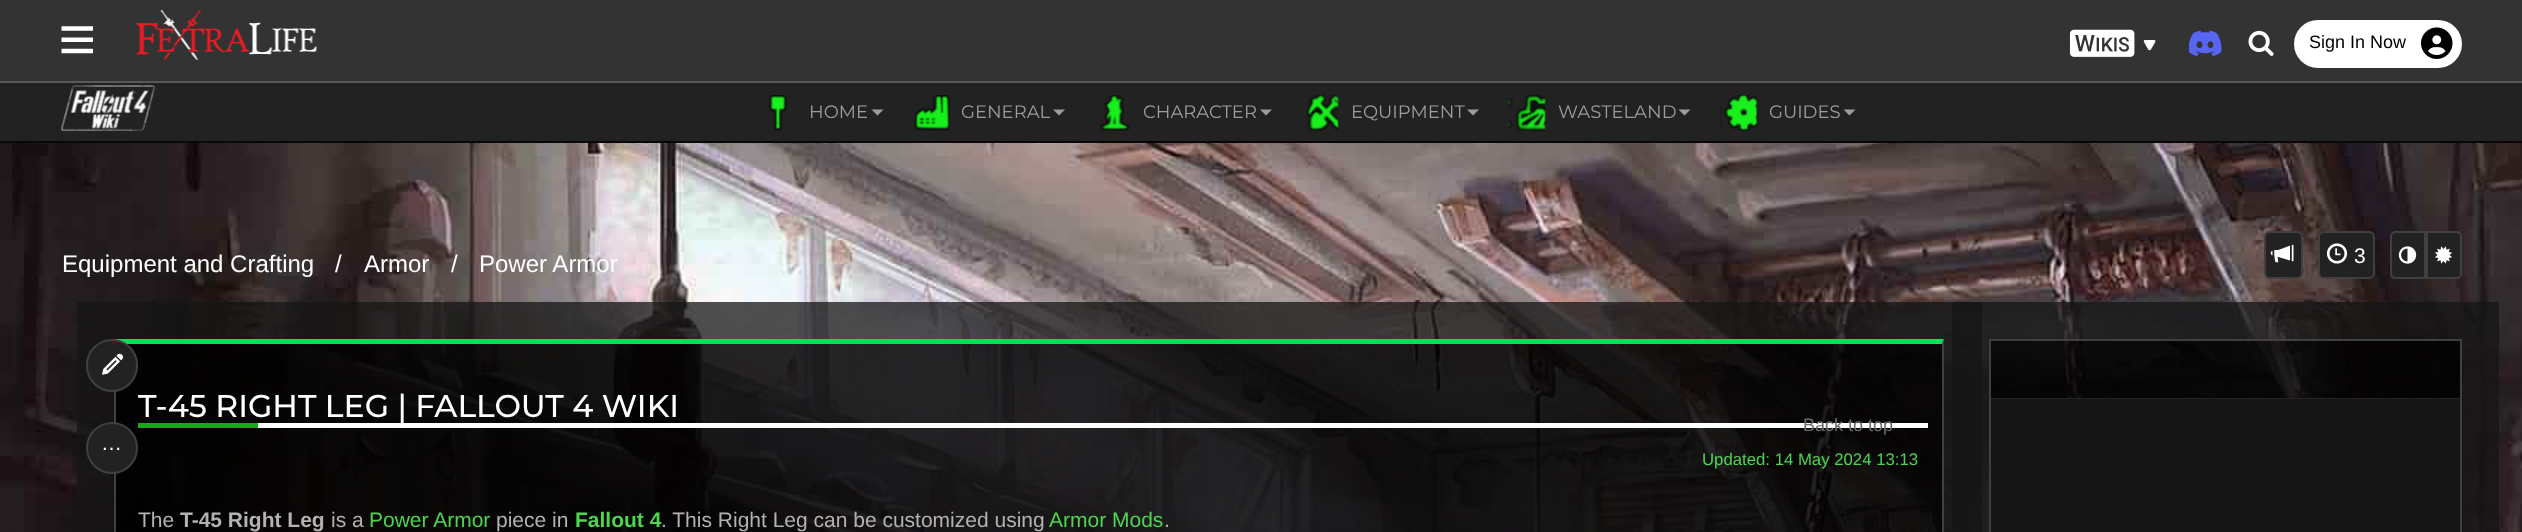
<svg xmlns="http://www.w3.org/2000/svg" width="2522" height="532">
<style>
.a{font:18px Liberation Sans;fill:#000}
.b{font:18px Montserrat;fill:#9d9d9d}
.c{font:24px Liberation Sans;fill:#fff}
.d{font:21px Liberation Sans;fill:#fff}
.e{font:500 31.5px Montserrat;fill:#fff}
.f{font:16.75px Liberation Sans;fill:#4fd451}
.g{font:21px Liberation Sans;fill:#b4b2b0}
.h{font:bold 21px Liberation Sans;fill:#b4b2b0}
.i{font:21px Liberation Sans;fill:#4fd451}
.j{font:bold 21px Liberation Sans;fill:#4fd451}
.k{font:18px Liberation Sans;fill:#6c6a6a}
</style>
<rect width="100%" height="100%" fill="#fff"/>
<path fill="#333" d="M0 0h2522v81H0z"/>
<path fill="#595959" d="M0 81h2522v2H0z"/>
<image href="1.png" x="61" y="26" width="32" height="28"/>
<image href="2.png" x="136" y="10" width="181" height="51"/>
<image href="3.png" x="2069" y="29" width="87" height="28"/>
<image href="4.png" x="2189" y="30" width="33" height="27"/>
<image href="5.png" x="2248" y="30" width="26" height="26"/>
<rect fill="#fff" x="2294" y="20" width="168" height="48" rx="24"/>
<image href="6.png" x="2421" y="27" width="32" height="32"/>
<path fill="#222" d="M0 83h2522v58H0z"/>
<path fill="#080808" d="M0 141h2522v2H0z"/>
<image href="7.png" x="61" y="85" width="94" height="46"/>
<image href="8.png" x="769" y="95" width="18" height="36"/>
<path fill="#9d9d9d" d="M871.5 109.5h12l-6 6z"/>
<image href="9.png" x="914" y="95" width="36" height="36"/>
<path fill="#9d9d9d" d="M1053 109.5h12l-6 6z"/>
<image href="10.png" x="1100" y="95" width="30" height="36"/>
<path fill="#9d9d9d" d="M1260 109.5h12l-6 6z"/>
<image href="11.png" x="1306" y="95" width="33" height="36"/>
<path fill="#9d9d9d" d="M1467 109.5h12l-6 6z"/>
<image href="12.png" x="1508" y="95" width="38" height="36"/>
<path fill="#9d9d9d" d="M1678.5 109.5h12l-6 6z"/>
<image href="13.png" x="1720" y="95" width="37" height="36"/>
<path fill="#9d9d9d" d="M1843.5 109.5h12l-6 6z"/>
<image href="14.png" x="0" y="143" width="2522" height="389"/>
<rect fill="#222" stroke="#404040" stroke-width="2" x="2265" y="232" width="37" height="46" rx="5"/>
<image href="15.png" x="2270" y="244" width="24" height="19"/>
<rect fill="#222" stroke="#404040" stroke-width="2" x="2319" y="232" width="55" height="46" rx="5"/>
<image href="16.png" x="2326" y="243" width="22" height="21"/>
<path fill="#222" stroke="#404040" stroke-width="2" d="M2395 232h30v46h-30c-2 0-4-2-4-4v-38c0-2 2-4 4-4z"/>
<image href="17.png" x="2398" y="246" width="19" height="18"/>
<path fill="#222" stroke="#404040" stroke-width="2" d="M2427 232h30c2 0 4 2 4 4v38c0 2-2 4-4 4h-30z"/>
<image href="18.png" x="2435" y="246" width="17" height="18"/>
<path fill="none" stroke="#161616bf" stroke-width="38" d="M1971 321h509v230H1971z"/>
<path fill="none" stroke="#161616bf" stroke-width="38" d="M96 321h1867v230H96z"/>
<path fill="#000000d9" d="M116 344h1826v188H116z"/>
<path fill="#00e357" d="M114 339h1830l-2 5h-1826z"/>
<path fill="#404040" d="M114 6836v-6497l2 5v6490z"/>
<rect fill="#222" stroke="#404040" stroke-width="2" x="87" y="340" width="50" height="51" rx="25"/>
<image href="19.png" x="102" y="353" width="21" height="22"/>
<circle fill="#222" stroke="#404040" stroke-width="2" cx="112" cy="448" r="25"/>
<path fill="#404040" d="M1944 339v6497l-2-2v-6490z"/>
<path fill="#fff" d="M258 423h1670v5H258z"/>
<path fill="#14ac16" d="M138 423h120v5H138z"/>
<path fill="#000000d9" d="M1991 341h469v57H1991z"/>
<path fill="none" stroke="#404040" stroke-width="2" d="M1990 340h471v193H1990z"/>
<path fill="#242424" d="M1991 398h469v1H1991z"/>
<path fill="#151515" d="M1991 399h469v133H1991z"/>
<text class="a" x="2309" y="48">Sign In Now</text>
<text class="b" x="809" y="118">HOME</text>
<text class="b" x="961" y="118">GENERAL</text>
<text class="b" x="1143" y="118">CHARACTER</text>
<text class="b" x="1351" y="118">EQUIPMENT</text>
<text class="b" x="1558" y="118">WASTELAND</text>
<text class="b" x="1769" y="118">GUIDES</text>
<text class="c" x="62" y="272">Equipment and Crafting</text>
<text class="c" x="335" y="272">/</text>
<text class="c" x="364" y="272">Armor</text>
<text class="c" x="451" y="272">/</text>
<text class="c" x="479" y="272">Power Armor</text>
<text class="d" x="2354" y="263">3</text>
<text class="d" x="101" y="450">…</text>
<text class="e" x="138" y="417">T-45 RIGHT LEG | FALLOUT 4 WIKI</text>
<text class="f" x="1702" y="465">Updated: 14 May 2024 13:13</text>
<text class="g" x="138" y="527">The</text>
<text class="h" x="180" y="527">T-45 Right Leg</text>
<text class="g" x="331" y="527">is a</text>
<text class="i" x="369" y="527">Power Armor</text>
<text class="g" x="496" y="527">piece in</text>
<text class="j" x="575" y="527">Fallout 4</text>
<text class="g" x="661" y="527">. This Right Leg can be customized using</text>
<text class="i" x="1049" y="527">Armor Mods</text>
<text class="g" x="1164" y="527">.</text>
<text class="k" x="1803" y="431">Back to top</text>
</svg>
